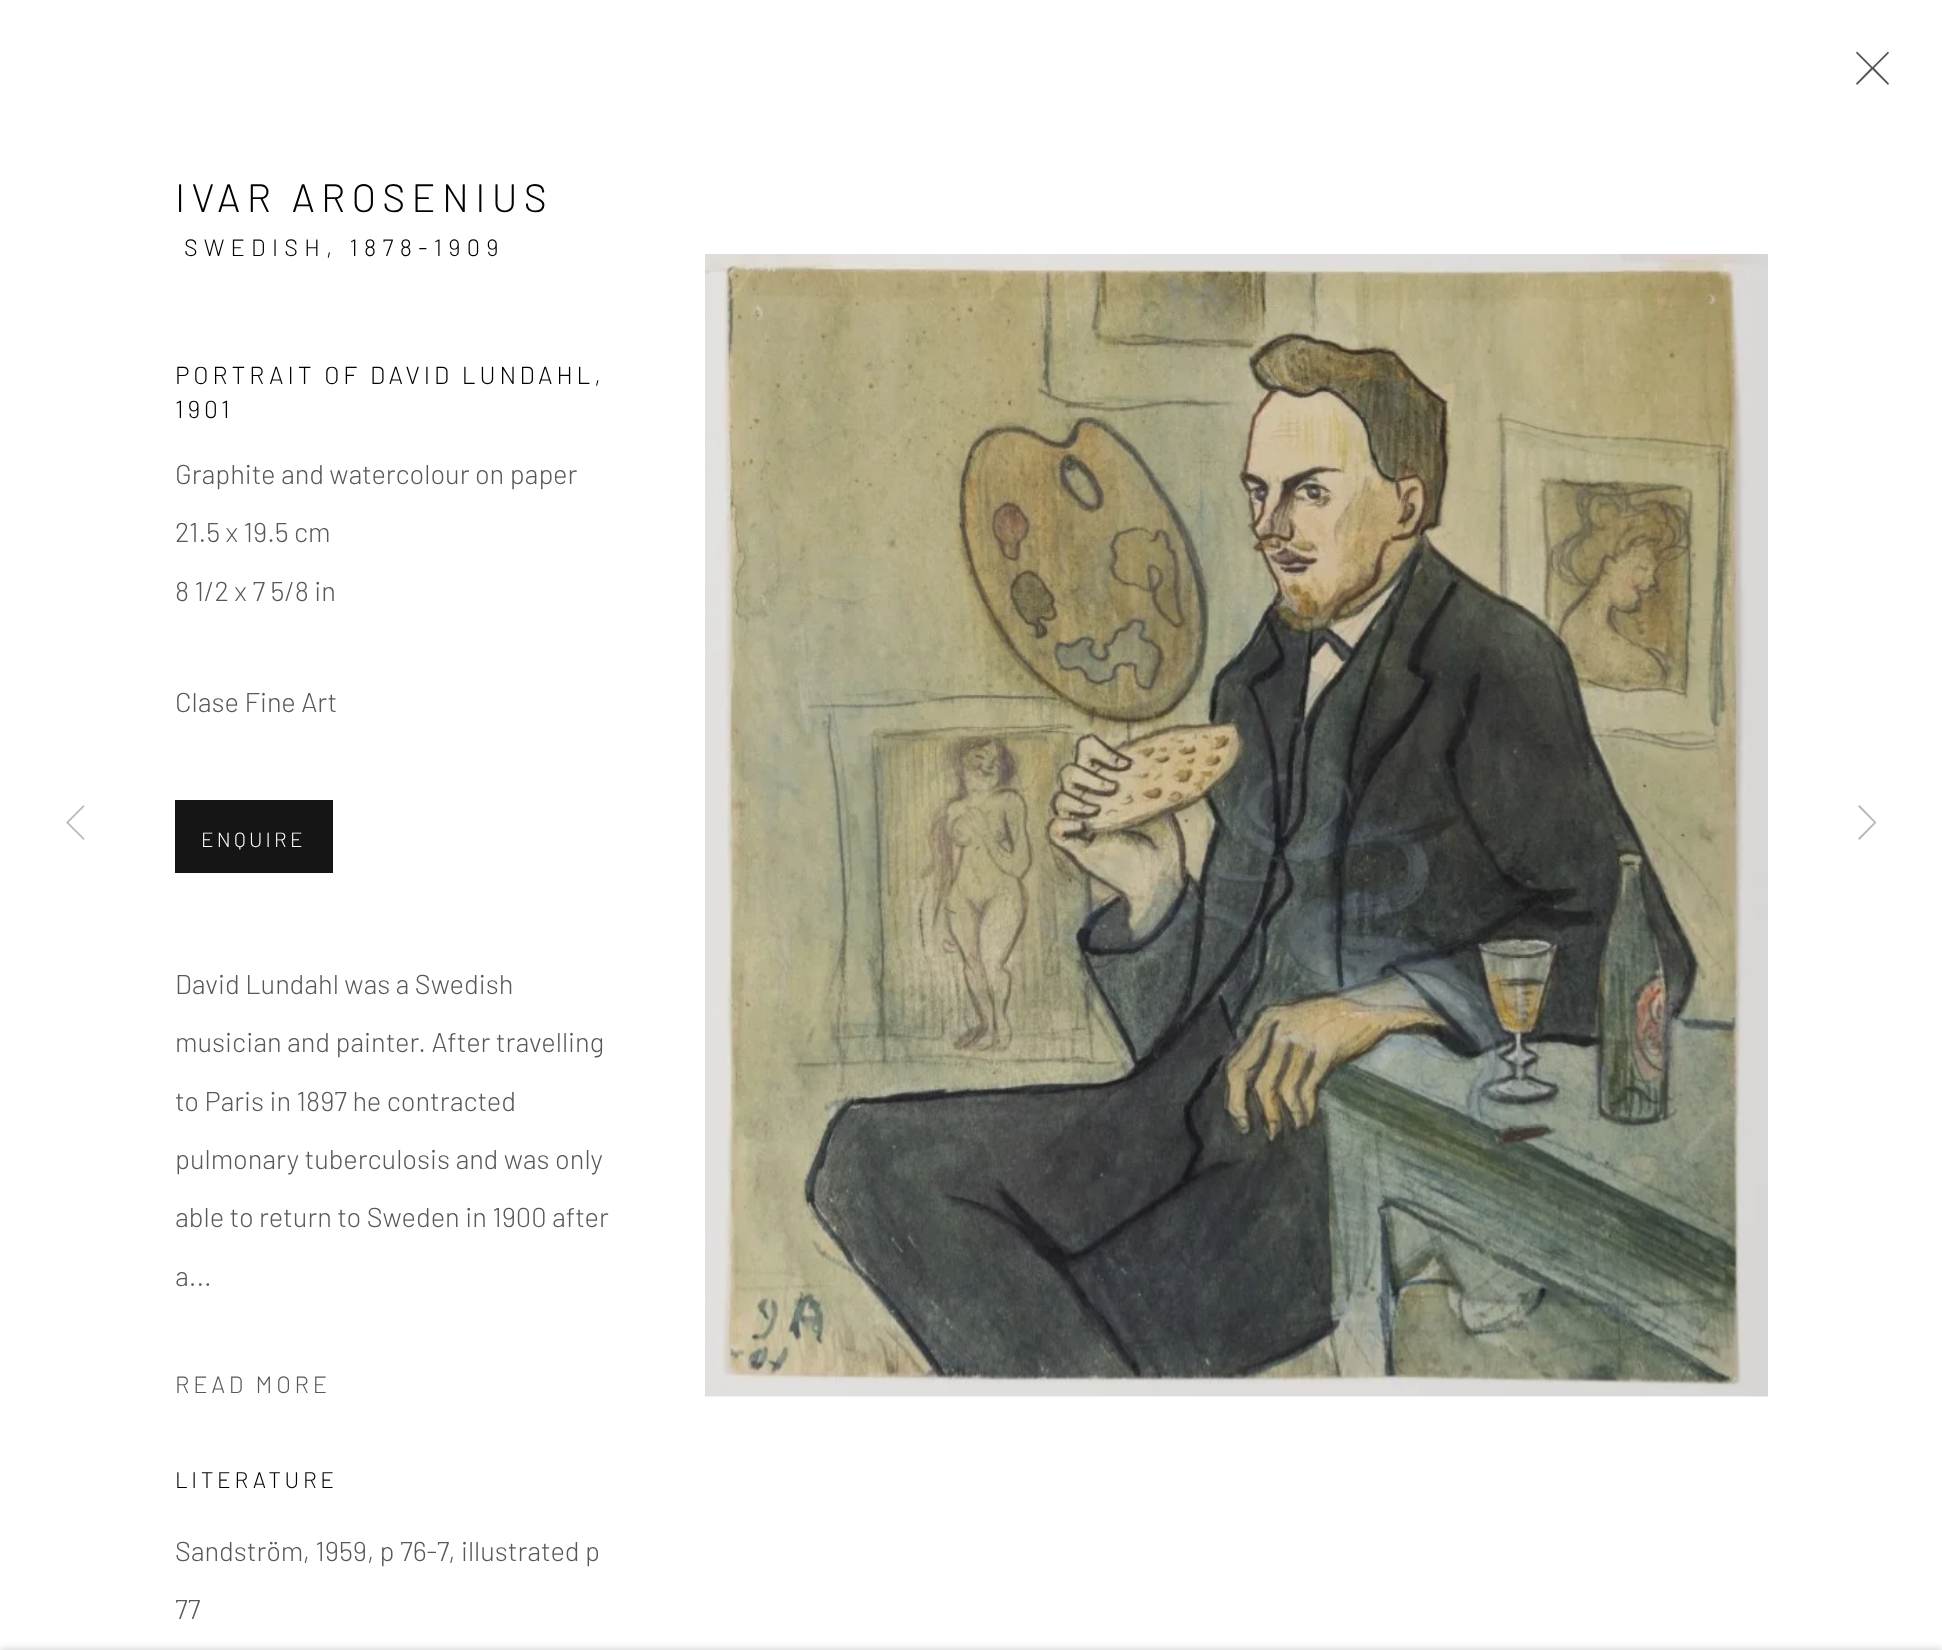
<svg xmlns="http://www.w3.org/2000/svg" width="1942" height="1650">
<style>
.a{font:300 39.5px Barlow;letter-spacing:6.3px;fill:#010101}
.b{font:300 23.5px Barlow;letter-spacing:6.3px;fill:#010101}
.c{font:300 24.5px Barlow;letter-spacing:3.9px;fill:#010101}
.d{font:300 27.25px Barlow;fill:#585858}
.e{font:300 20.5px Barlow;letter-spacing:3.25px;fill:#fff}
.f{font:300 23.5px Barlow;letter-spacing:3.75px;fill:#585858}
.g{font:300 22.5px Barlow;letter-spacing:3.6px;fill:#010101}
</style>
<rect width="100%" height="100%" fill="#fff"/>
<path fill="#555" d="M1889 53l-1-1.5l-15.5 15.5l-15.5-15.5l-1 1.5l15 15l-15 15.5l1 1.5l15.5-15.5l15.5 15.5l1-1.5l-15-15.5z"/>
<path fill="#151515" d="M175 800h158v73H175z"/>
<image href="1.png" x="705" y="254" width="1063" height="1143"/>
<path fill="#b9b9b9" d="M67.5 824l16 16l1-1.5l-16-16l16-16l-1-1.5l-17.5 17.5z"/>
<path fill="#b9b9b9" d="M1876.5 822.5l-17-17.5l-1.5 1.5l16 16l-16 16l1.5 1.5z"/>
<path fill="#0000003b" filter="blur(4.5px)" d="M0 1650h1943v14H0z"/>
<text class="a" x="175" y="212">IVAR AROSENIUS</text>
<text class="b" x="184" y="256">SWEDISH, 1878-1909</text>
<text class="c" x="175" y="384">PORTRAIT OF DAVID LUNDAHL,</text>
<text class="c" x="175" y="418">1901</text>
<text class="d" x="175" y="484">Graphite and watercolour on paper</text>
<text class="d" x="175" y="542">21.5 x 19.5 cm</text>
<text class="d" x="175" y="601">8 1/2 x 7 5/8 in</text>
<text class="d" x="175" y="712">Clase Fine Art</text>
<text class="e" x="201" y="847">ENQUIRE</text>
<text class="d" x="175" y="994">David Lundahl was a Swedish</text>
<text class="d" x="175" y="1052">musician and painter. After travelling</text>
<text class="d" x="175" y="1111">to Paris in 1897 he contracted</text>
<text class="d" x="175" y="1169">pulmonary tuberculosis and was only</text>
<text class="d" x="175" y="1227">able to return to Sweden in 1900 after</text>
<text class="d" x="175" y="1286">a...</text>
<text class="f" x="175" y="1393">READ MORE</text>
<text class="g" x="175" y="1488">LITERATURE</text>
<text class="d" x="175" y="1561">Sandström, 1959, p 76-7, illustrated p</text>
<text class="d" x="175" y="1619">77</text>
</svg>
